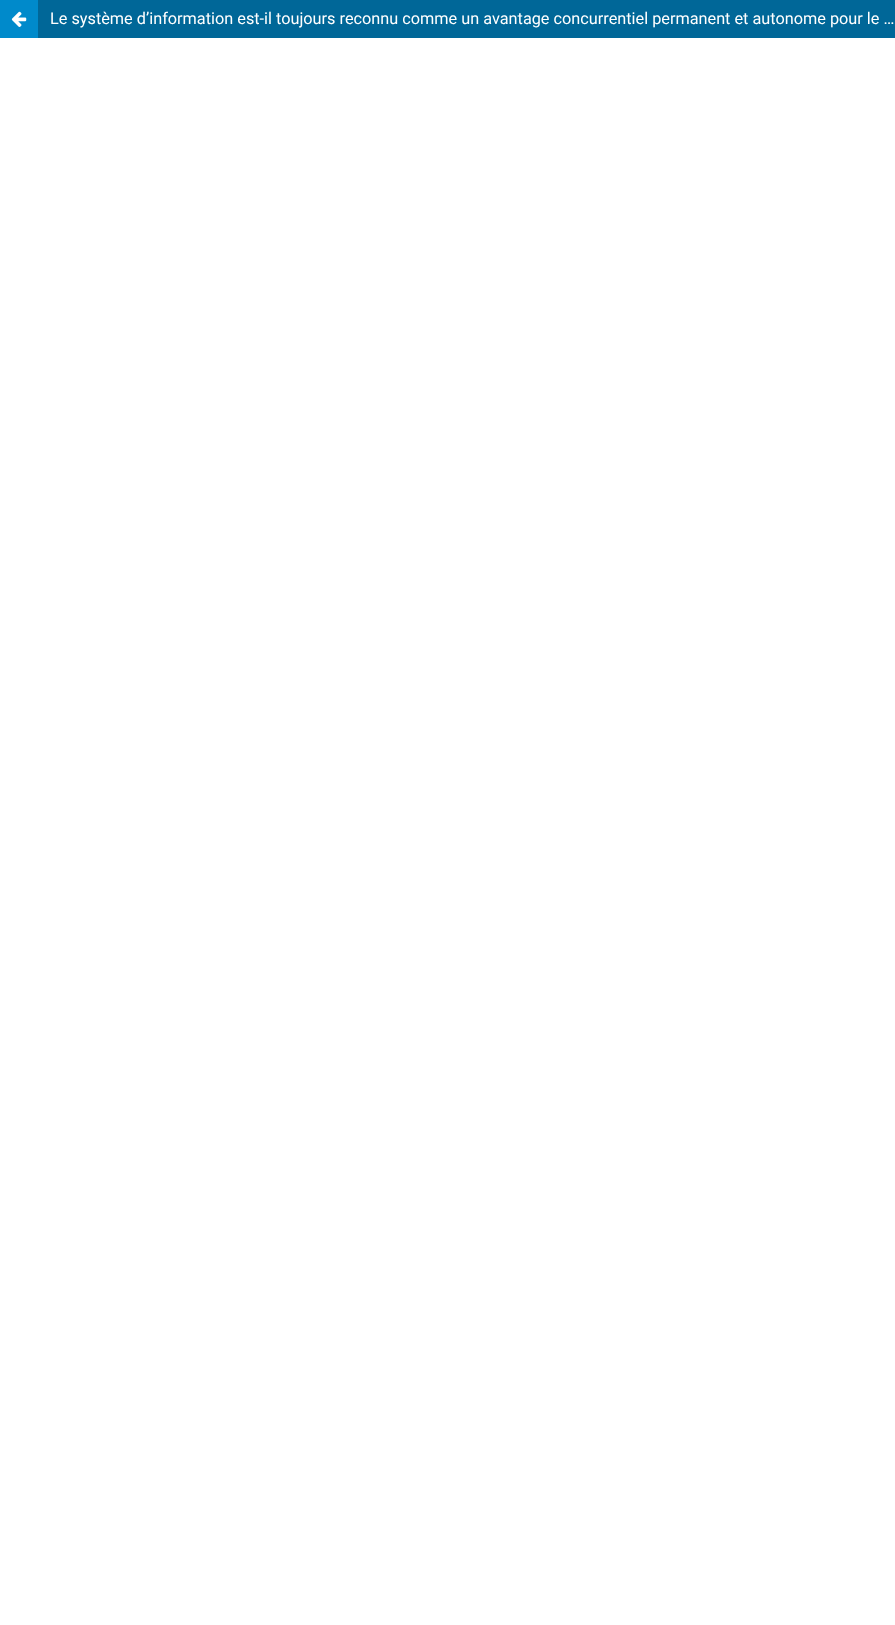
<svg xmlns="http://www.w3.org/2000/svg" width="895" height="1625">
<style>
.a{font:16.27px Roboto;fill:#fff}
</style>
<rect width="100%" height="100%" fill="#fff"/>
<path fill="#006798" d="M38 0h857v38H38z"/>
<path fill="#008acb" d="M0 0h38v38H0z"/>
<image href="1.png" x="11" y="11" width="16" height="16"/>
<text class="a" x="50" y="24">Le système d’information est-il toujours reconnu comme un avantage concurrentiel permanent et autonome pour le …</text>
</svg>
